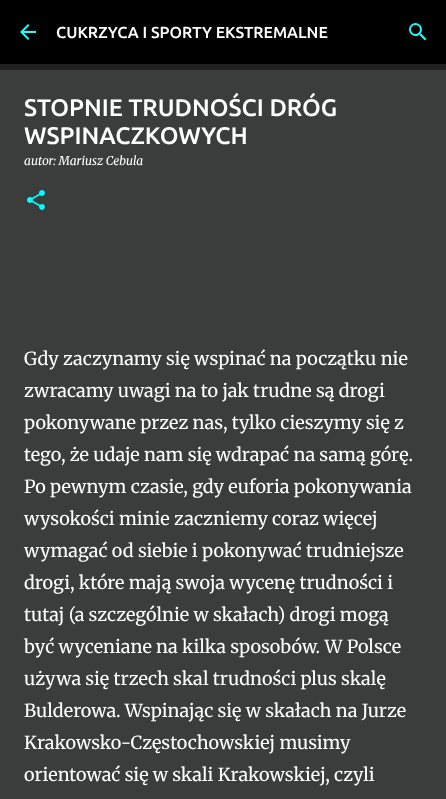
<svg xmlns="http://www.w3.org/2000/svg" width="446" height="799">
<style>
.a{font:500 16px Ubuntu;fill:#fff}
.b{font:500 24px Ubuntu;fill:#fff}
.c{font:italic 12px Merriweather;fill:#fff}
.d{font:300 18px Merriweather;fill:#fff}
</style>
<rect width="100%" height="100%" fill="#212121"/>
<path fill="#000" d="M0 0h446v64H0z"/>
<image href="1.png" x="20" y="24" width="16" height="16"/>
<image href="2.png" x="409" y="23" width="18" height="18"/>
<path fill="#3b3d3d" d="M0 70h446v729H0z"/>
<image href="3.png" x="27" y="190" width="18" height="20"/>
<text class="a" x="56" y="38">CUKRZYCA I SPORTY EKSTREMALNE</text>
<text class="b" x="24" y="116">STOPNIE TRUDNOŚCI DRÓG</text>
<text class="b" x="24" y="144">WSPINACZKOWYCH</text>
<text class="c" x="24" y="165">autor: Mariusz Cebula</text>
<text class="d" x="24" y="365">Gdy zaczynamy się wspinać na początku nie</text>
<text class="d" x="24" y="397">zwracamy uwagi na to jak trudne są drogi</text>
<text class="d" x="24" y="429">pokonywane przez nas, tylko cieszymy się z</text>
<text class="d" x="24" y="461">tego, że udaje nam się wdrapać na samą górę.</text>
<text class="d" x="24" y="493">Po pewnym czasie, gdy euforia pokonywania</text>
<text class="d" x="24" y="525">wysokości minie zaczniemy coraz więcej</text>
<text class="d" x="24" y="557">wymagać od siebie i pokonywać trudniejsze</text>
<text class="d" x="24" y="589">drogi, które mają swoja wycenę trudności i</text>
<text class="d" x="24" y="621">tutaj (a szczególnie w skałach) drogi mogą</text>
<text class="d" x="24" y="653">być wyceniane na kilka sposobów. W Polsce</text>
<text class="d" x="24" y="685">używa się trzech skal trudności plus skalę</text>
<text class="d" x="24" y="717">Bulderowa. Wspinając się w skałach na Jurze</text>
<text class="d" x="24" y="749">Krakowsko-Częstochowskiej musimy</text>
<text class="d" x="24" y="781">orientować się w skali Krakowskiej, czyli</text>
</svg>
